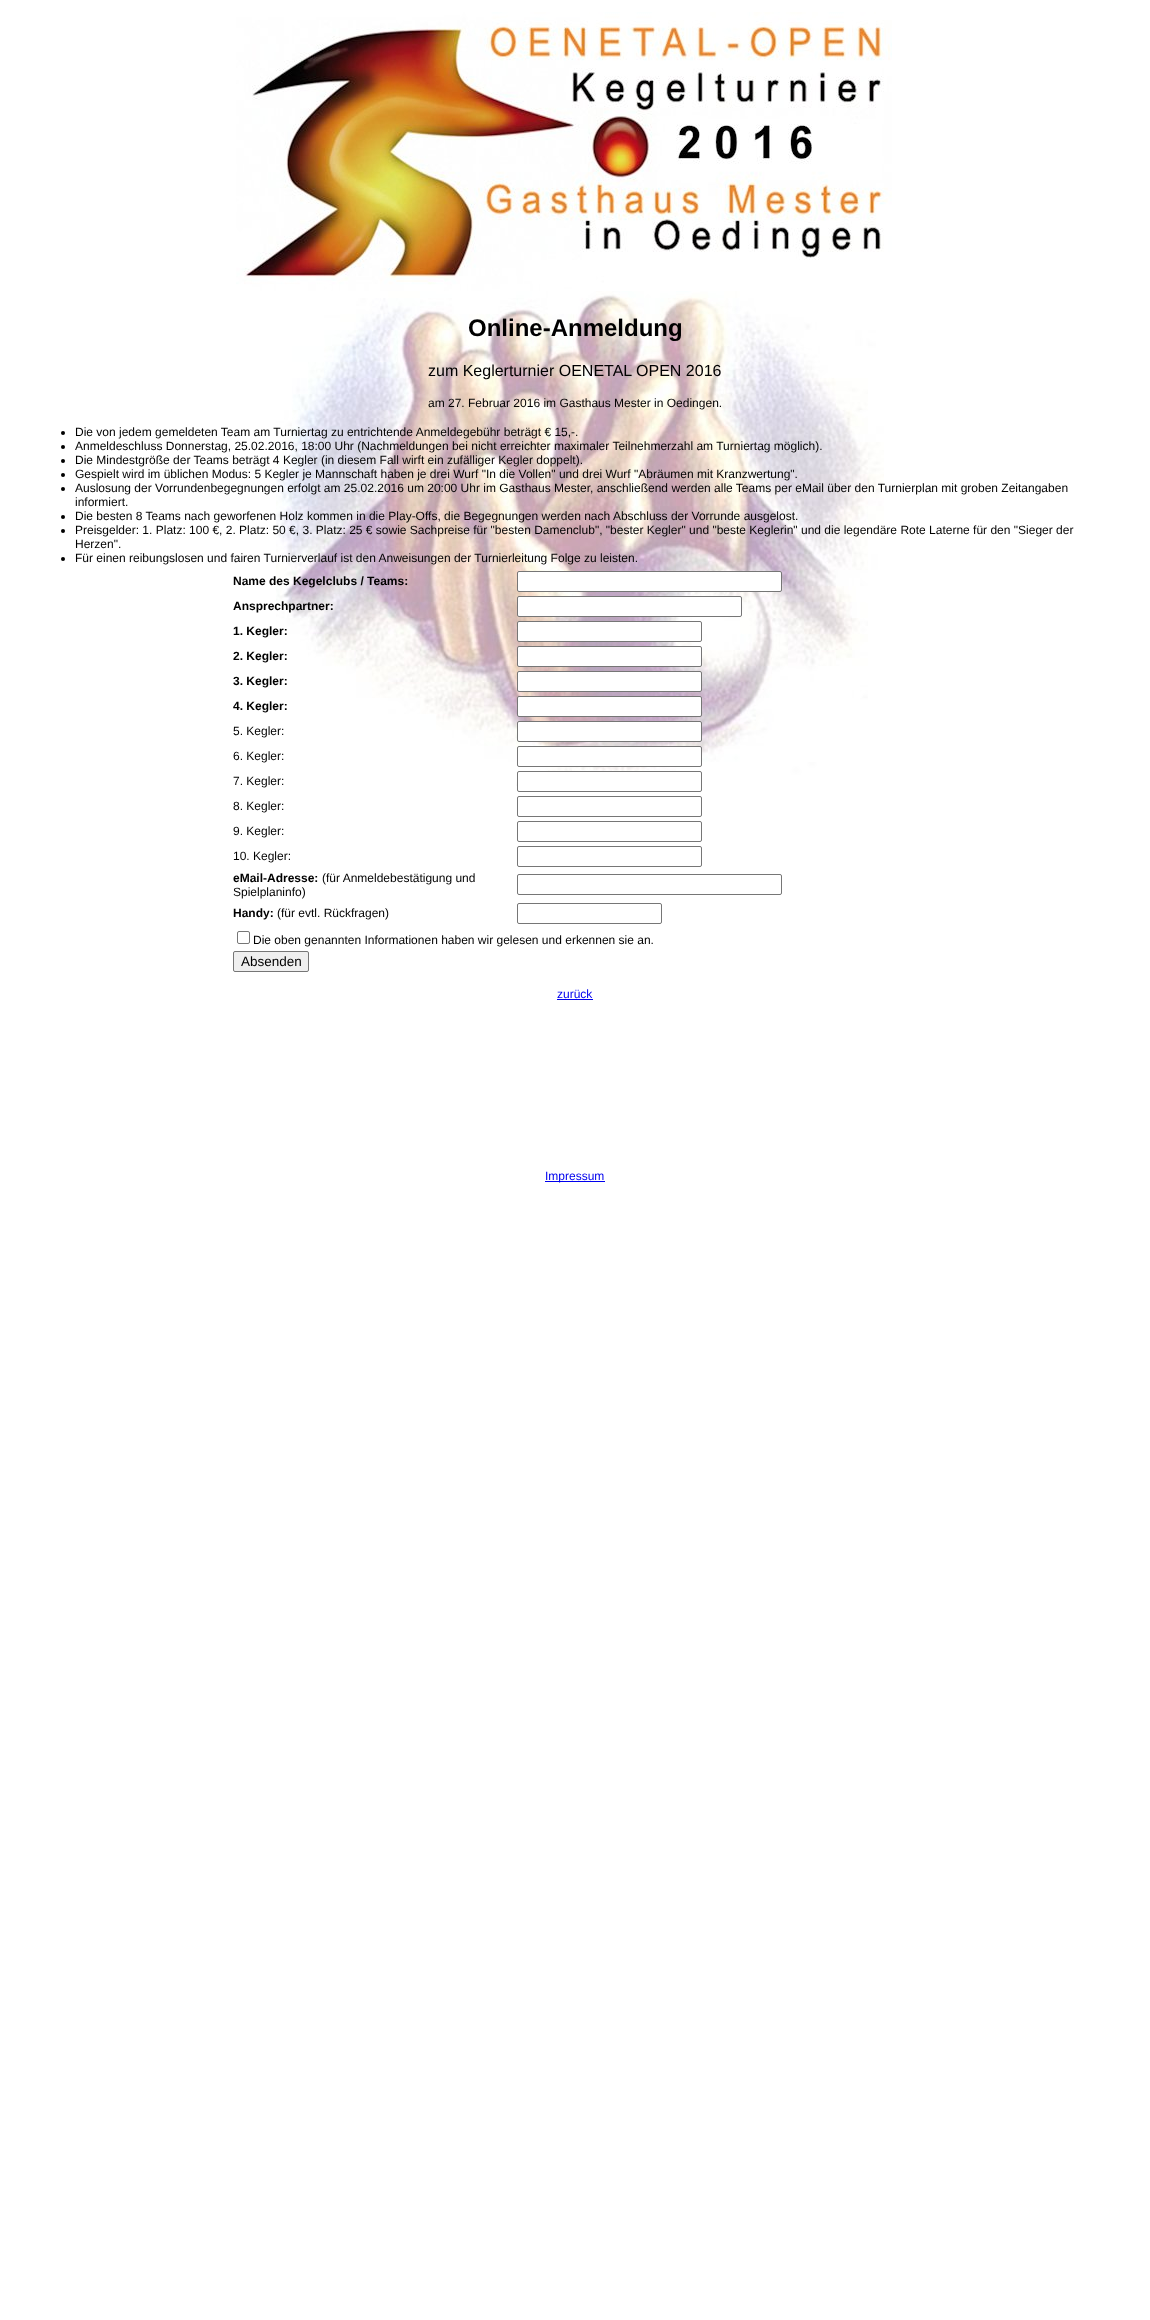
<svg xmlns="http://www.w3.org/2000/svg" width="1150" height="2320">
<style>
.a{font:bold 24px Liberation Sans;fill:#000}
.b{font:16px Liberation Sans;fill:#000}
.c{font:12px Liberation Sans;fill:#000}
.d{font:bold 12px Liberation Sans;fill:#000}
.e{font:13.5px Liberation Sans;fill:#000}
.f{font:12px Liberation Sans;fill:#00e}
</style>
<rect width="100%" height="100%" fill="#fff"/>
<image href="1.png" x="276" y="291" width="608" height="495"/>
<image href="2.png" x="236" y="12" width="656" height="279"/>
<circle fill="#000" cx="63" cy="433" r="2"/>
<circle fill="#000" cx="63" cy="447" r="2"/>
<circle fill="#000" cx="63" cy="461" r="2"/>
<circle fill="#000" cx="63" cy="475" r="2"/>
<circle fill="#000" cx="63" cy="489" r="2"/>
<circle fill="#000" cx="63" cy="517" r="2"/>
<circle fill="#000" cx="63" cy="531" r="2"/>
<circle fill="#000" cx="63" cy="559" r="2"/>
<rect fill="#fff" stroke="#767676" x="517.5" y="571.5" width="264" height="20" rx="1.5"/>
<rect fill="#fff" stroke="#767676" x="517.5" y="596.5" width="224" height="20" rx="1.5"/>
<rect fill="#fff" stroke="#767676" x="517.5" y="621.5" width="184" height="20" rx="1.5"/>
<rect fill="#fff" stroke="#767676" x="517.5" y="646.5" width="184" height="20" rx="1.5"/>
<rect fill="#fff" stroke="#767676" x="517.5" y="671.5" width="184" height="20" rx="1.5"/>
<rect fill="#fff" stroke="#767676" x="517.5" y="696.5" width="184" height="20" rx="1.5"/>
<rect fill="#fff" stroke="#767676" x="517.5" y="721.5" width="184" height="20" rx="1.5"/>
<rect fill="#fff" stroke="#767676" x="517.5" y="746.5" width="184" height="20" rx="1.5"/>
<rect fill="#fff" stroke="#767676" x="517.5" y="771.5" width="184" height="20" rx="1.5"/>
<rect fill="none" stroke="#767676" x="517.5" y="796.5" width="184" height="20" rx="1.5"/>
<rect fill="none" stroke="#767676" x="517.5" y="821.5" width="184" height="20" rx="1.5"/>
<rect fill="none" stroke="#767676" x="517.5" y="846.5" width="184" height="20" rx="1.5"/>
<rect fill="none" stroke="#767676" x="517.5" y="874.5" width="264" height="20" rx="1.5"/>
<rect fill="none" stroke="#767676" x="517.5" y="903.5" width="144" height="20" rx="1.5"/>
<rect fill="none" stroke="#767676" x="237.5" y="931.5" width="12" height="12" rx="1.5"/>
<rect fill="#efefef" stroke="#767676" x="233.5" y="951.5" width="75" height="20" rx="1.5"/>
<path fill="#00e" d="M557 999h36v1H557z"/>
<path fill="#00e" d="M545 1181h60v1H545z"/>
<text class="a" x="468" y="336">Online-Anmeldung</text>
<text class="b" x="428" y="376">zum Keglerturnier OENETAL OPEN 2016</text>
<text class="c" x="428" y="407">am 27. Februar 2016 im Gasthaus Mester in Oedingen.</text>
<text class="c" x="75" y="436">Die von jedem gemeldeten Team am Turniertag zu entrichtende Anmeldegebühr beträgt € 15,-.</text>
<text class="c" x="75" y="450">Anmeldeschluss Donnerstag, 25.02.2016, 18:00 Uhr (Nachmeldungen bei nicht erreichter maximaler Teilnehmerzahl am Turniertag möglich).</text>
<text class="c" x="75" y="464">Die Mindestgröße der Teams beträgt 4 Kegler (in diesem Fall wirft ein zufälliger Kegler doppelt).</text>
<text class="c" x="75" y="478">Gespielt wird im üblichen Modus: 5 Kegler je Mannschaft haben je drei Wurf "In die Vollen" und drei Wurf "Abräumen mit Kranzwertung".</text>
<text class="c" x="75" y="492">Auslosung der Vorrundenbegegnungen erfolgt am 25.02.2016 um 20:00 Uhr im Gasthaus Mester, anschließend werden alle Teams per eMail über den Turnierplan mit groben Zeitangaben</text>
<text class="c" x="75" y="506">informiert.</text>
<text class="c" x="75" y="520">Die besten 8 Teams nach geworfenen Holz kommen in die Play-Offs, die Begegnungen werden nach Abschluss der Vorrunde ausgelost.</text>
<text class="c" x="75" y="534">Preisgelder: 1. Platz: 100 €, 2. Platz: 50 €, 3. Platz: 25 € sowie Sachpreise für "besten Damenclub", "bester Kegler" und "beste Keglerin" und die legendäre Rote Laterne für den "Sieger der</text>
<text class="c" x="75" y="548">Herzen".</text>
<text class="c" x="75" y="562">Für einen reibungslosen und fairen Turnierverlauf ist den Anweisungen der Turnierleitung Folge zu leisten.</text>
<text class="d" x="233" y="585">Name des Kegelclubs / Teams:</text>
<text class="d" x="233" y="610">Ansprechpartner:</text>
<text class="d" x="233" y="635">1. Kegler:</text>
<text class="d" x="233" y="660">2. Kegler:</text>
<text class="d" x="233" y="685">3. Kegler:</text>
<text class="d" x="233" y="710">4. Kegler:</text>
<text class="c" x="233" y="735">5. Kegler:</text>
<text class="c" x="233" y="760">6. Kegler:</text>
<text class="c" x="233" y="785">7. Kegler:</text>
<text class="c" x="233" y="810">8. Kegler:</text>
<text class="c" x="233" y="835">9. Kegler:</text>
<text class="c" x="233" y="860">10. Kegler:</text>
<text class="d" x="233" y="882">eMail-Adresse:</text>
<text class="c" x="322" y="882">(für Anmeldebestätigung und</text>
<text class="c" x="233" y="896">Spielplaninfo)</text>
<text class="d" x="233" y="917">Handy:</text>
<text class="c" x="277" y="917">(für evtl. Rückfragen)</text>
<text class="c" x="253" y="944">Die oben genannten Informationen haben wir gelesen und erkennen sie an.</text>
<text class="e" x="241" y="966">Absenden</text>
<text class="f" x="557" y="998">zurück</text>
<text class="f" x="545" y="1180">Impressum</text>
</svg>
